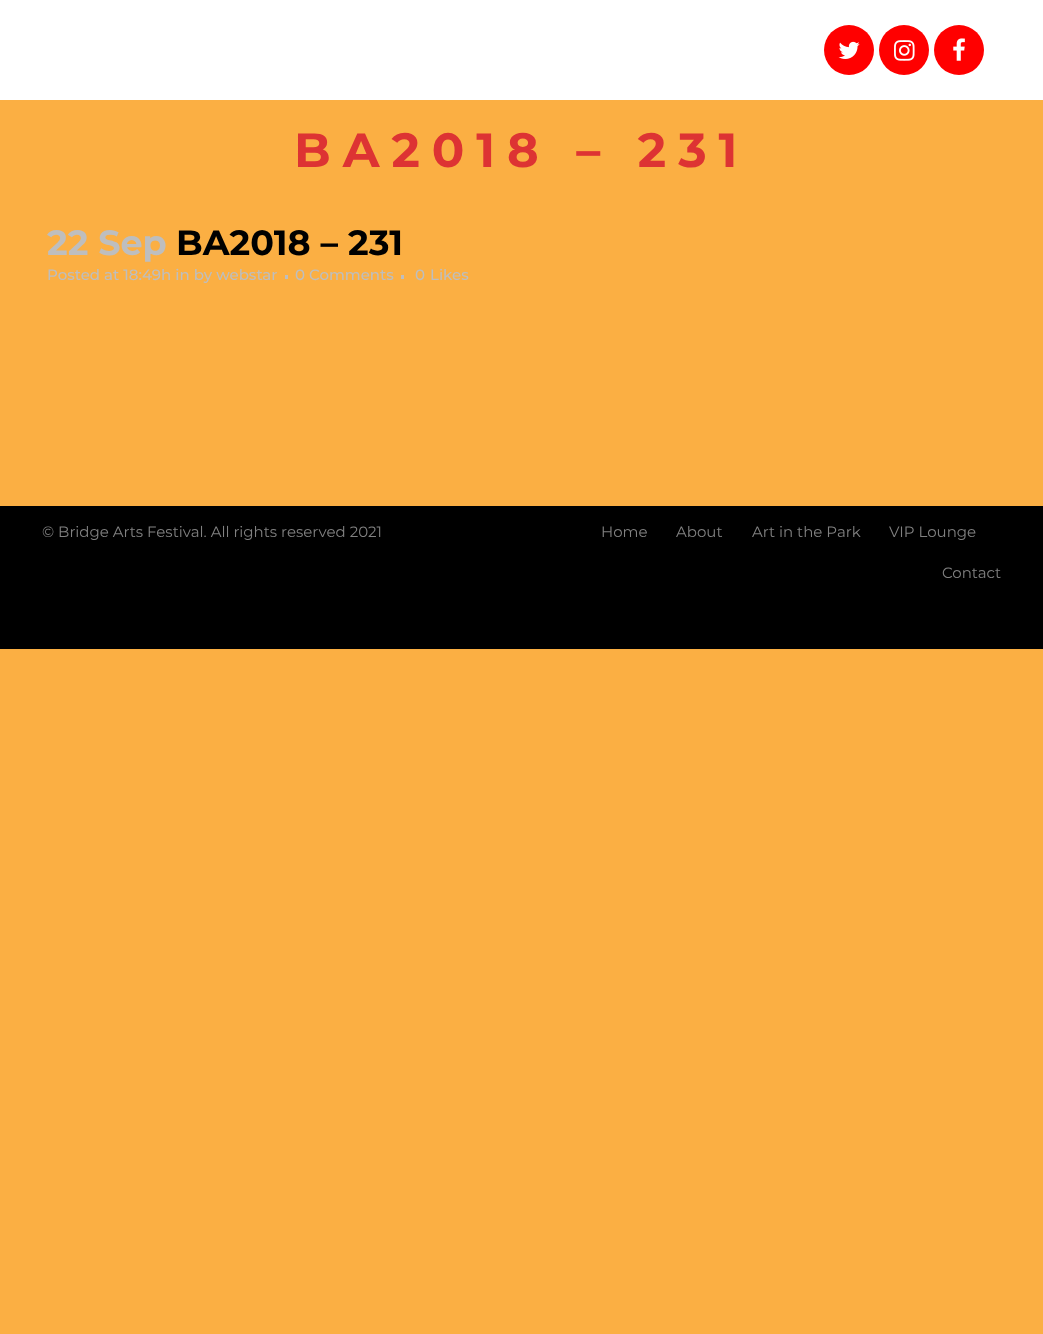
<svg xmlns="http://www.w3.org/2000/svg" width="1043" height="1334">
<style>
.a{font:bold 48px Montserrat;letter-spacing:12px;fill:#d33}
.b{font:bold 35px Montserrat;fill:#bebebe}
.c{font:bold 35px Montserrat;fill:#000}
.d{font:500 15px Montserrat;fill:#bebebe}
.e{font:15px Montserrat;fill:#818181}
</style>
<rect width="100%" height="100%" fill="#fbaf43"/>
<path fill="#fff" d="M0 0h1043v100H0z"/>
<circle fill="#f00" cx="849" cy="50" r="25"/>
<image href="1.png" x="838" y="41" width="22" height="18"/>
<circle fill="#f00" cx="904" cy="50" r="25"/>
<image href="2.png" x="894" y="40" width="21" height="21"/>
<circle fill="#f00" cx="959" cy="50" r="25"/>
<image href="3.png" x="953" y="38" width="12" height="23"/>
<path fill="#bebebe" d="M285 275h3v4H285z"/>
<path fill="#bebebe" d="M401 275h3v4H401z"/>
<path fill="#000" d="M0 506h1043v143H0z"/>
<text class="a" x="294" y="167">BA2018 – 231</text>
<text class="b" x="47" y="255">22 Sep</text>
<text class="c" x="176" y="255">BA2018 – 231</text>
<text class="d" x="47" y="280">Posted at 18:49h in by webstar</text>
<text class="d" x="295" y="280">0 Comments</text>
<text class="d" x="415" y="280">0</text>
<text class="d" x="430" y="280">Likes</text>
<text class="e" x="42" y="537">© Bridge Arts Festival. All rights reserved 2021</text>
<text class="e" x="601" y="537">Home</text>
<text class="e" x="676" y="537">About</text>
<text class="e" x="752" y="537">Art in the Park</text>
<text class="e" x="889" y="537">VIP Lounge</text>
<text class="e" x="942" y="578">Contact</text>
</svg>
